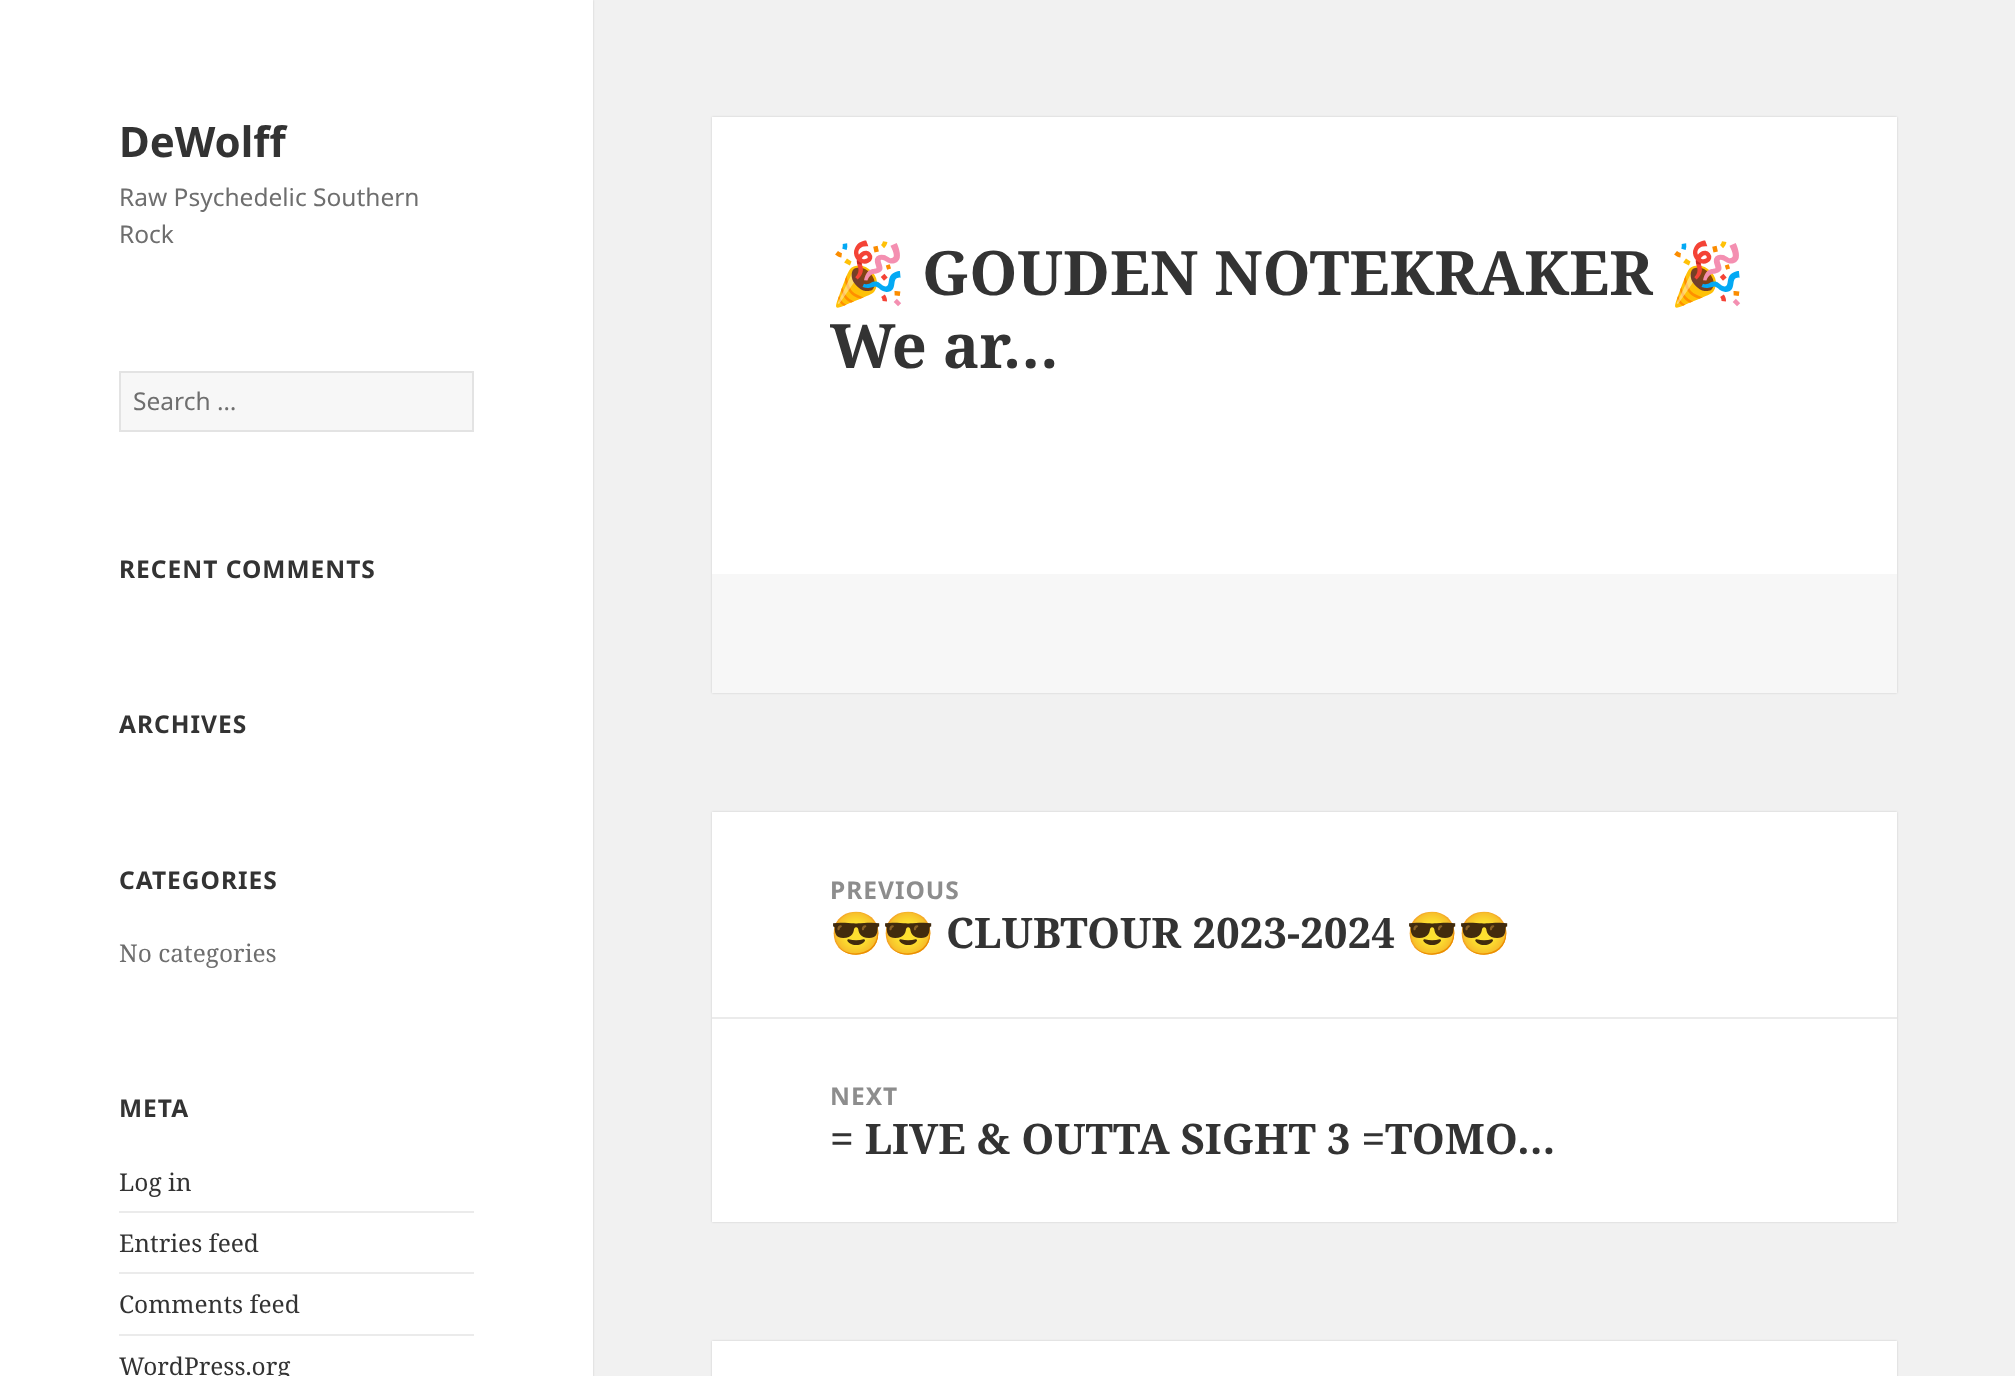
<svg xmlns="http://www.w3.org/2000/svg" width="2015" height="1376">
<style>
.a{font:bold 42px Noto Sans;fill:#333}
.b{font:24.5px Noto Sans;fill:#6e6e6e}
.c{font:bold 24.5px Noto Sans;letter-spacing:1px;fill:#333}
.d{font:24.5px Noto Serif;fill:#6e6e6e}
.e{font:24.5px Noto Serif;fill:#333}
.f{font:bold 61.25px Noto Color Emoji;fill:#333}
.g{font:bold 61.25px Noto Serif;fill:#333}
.h{font:bold 24.5px Noto Sans;letter-spacing:1px;fill:#8d8d8d}
.i{font:bold 42px Noto Color Emoji;fill:#333}
.j{font:bold 42px Noto Serif;fill:#333}
</style>
<rect width="100%" height="100%" fill="#f1f1f1"/>
<path fill="#00000026" filter="blur(1px)" d="M0 0h593v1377H0z"/>
<path fill="#fff" d="M0 0h593v1376H0z"/>
<path fill="#f7f7f7" stroke="#e3e3e3" stroke-width="2" d="M120 372h353v59H120z"/>
<path fill="#ebebeb" d="M119 1211h355v2H119z"/>
<path fill="#ebebeb" d="M119 1272h355v2H119z"/>
<path fill="#ebebeb" d="M119 1334h355v2H119z"/>
<path fill="#00000026" filter="blur(1px)" d="M712 117h1185v576H712z"/>
<path fill="#fff" d="M712 117h1185v457H712z"/>
<path fill="#f7f7f7" d="M712 574h1185v119H712z"/>
<path fill="#00000026" filter="blur(1px)" d="M712 812h1185v410H712z"/>
<path fill="#fff" d="M712 812h1185v410H712z"/>
<path fill="#ebebeb" d="M712 1017h1185v2H712z"/>
<path fill="#00000026" filter="blur(1px)" d="M712 1341h1185v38H712z"/>
<path fill="#fff" d="M712 1341h1185v35H712z"/>
<text class="a" x="119" y="157">DeWolff</text>
<text class="b" x="119" y="206">Raw Psychedelic Southern</text>
<text class="b" x="119" y="243">Rock</text>
<text class="b" x="133" y="410">Search …</text>
<text class="c" x="119" y="578">RECENT COMMENTS</text>
<text class="c" x="119" y="733">ARCHIVES</text>
<text class="c" x="119" y="889">CATEGORIES</text>
<text class="d" x="119" y="962">No categories</text>
<text class="c" x="119" y="1117">META</text>
<text class="e" x="119" y="1191">Log in</text>
<text class="e" x="119" y="1252">Entries feed</text>
<text class="e" x="119" y="1313">Comments feed</text>
<text class="e" x="119" y="1375">WordPress.org</text>
<text class="f" x="830" y="295">🎉</text>
<text class="g" x="922" y="295">GOUDEN NOTEKRAKER</text>
<text class="f" x="1669" y="295">🎉</text>
<text class="g" x="830" y="368">We ar…</text>
<text class="h" x="830" y="899">PREVIOUS</text>
<text class="i" x="830" y="948">😎😎</text>
<text class="j" x="946" y="948">CLUBTOUR 2023-2024</text>
<text class="i" x="1406" y="948">😎😎</text>
<text class="h" x="830" y="1105">NEXT</text>
<text class="j" x="830" y="1154">= LIVE &amp; OUTTA SIGHT 3 =TOMO…</text>
</svg>
